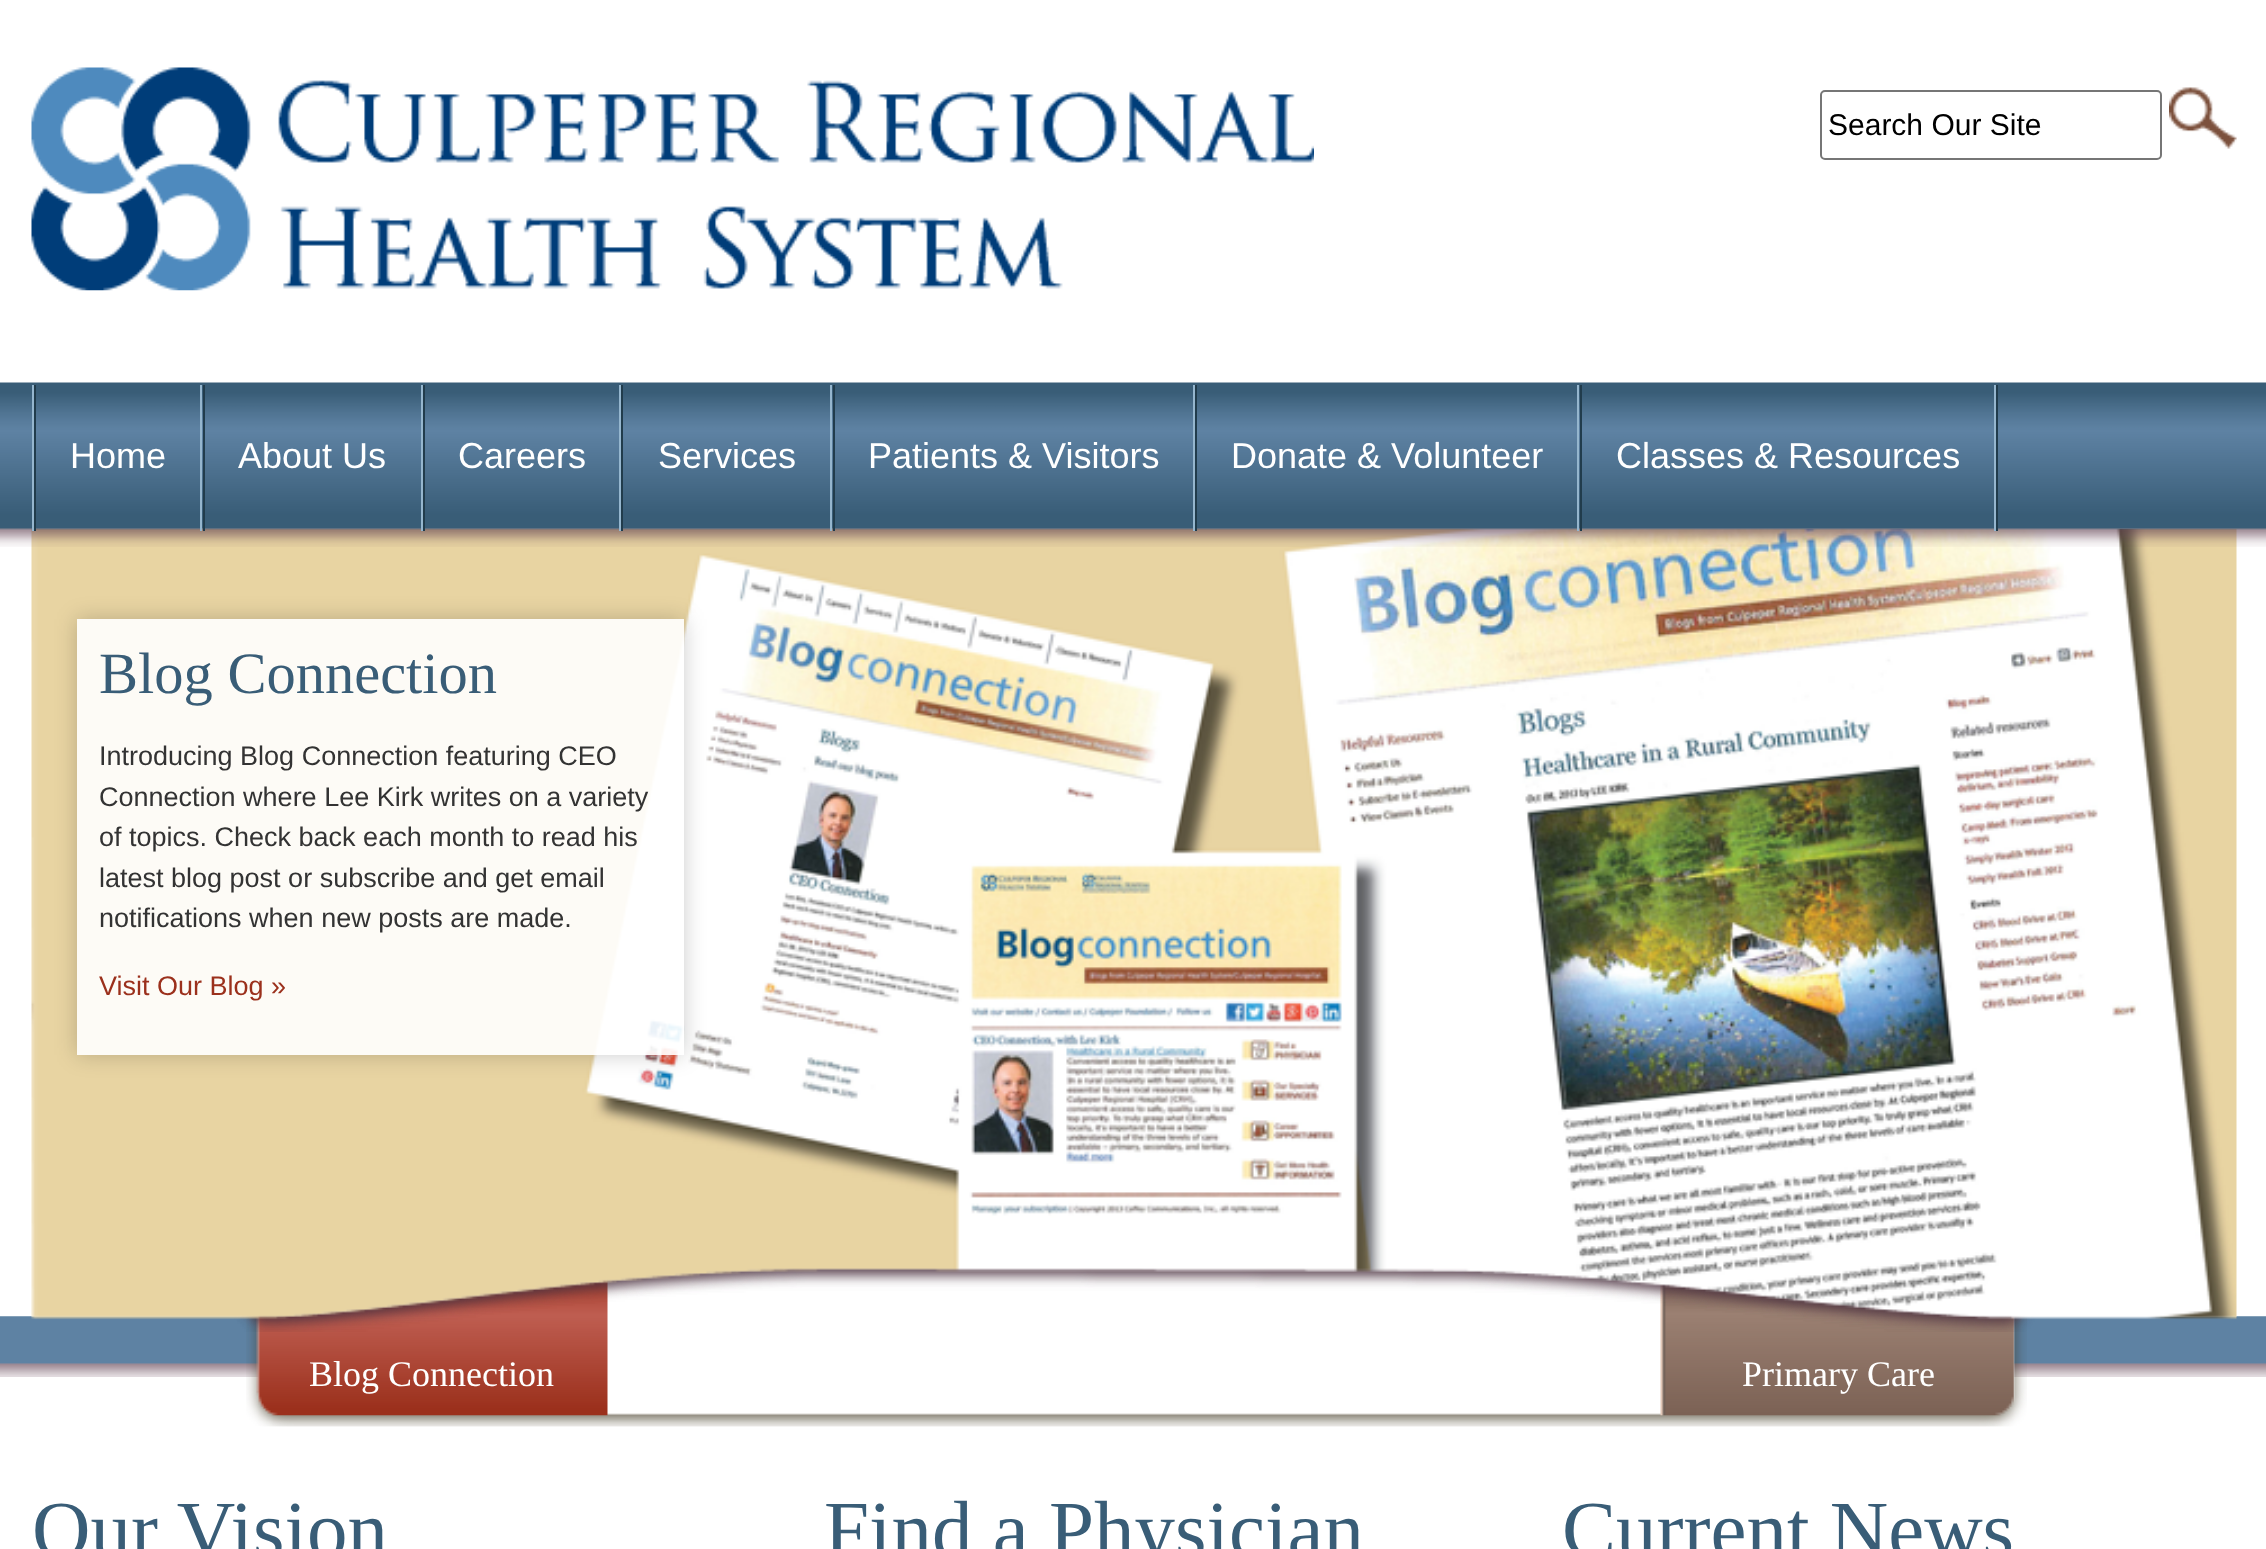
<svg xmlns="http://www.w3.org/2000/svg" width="2266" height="1549">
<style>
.a{font:30px Liberation Sans;fill:#000}
.b{font:36px Liberation Sans;fill:#fff}
.c{font:58.5px Liberation Serif;fill:#395d77}
.d{font:27px Liberation Sans;fill:#333}
.e{font:27px Liberation Sans;fill:#9b301c}
.f{font:36px Liberation Serif;fill:#fff}
.g{font:81px Liberation Serif;fill:#395d77}
</style>
<defs>
<clipPath id="clip1"><path d="M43 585h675v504h-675zm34 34h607v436h-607z" clip-rule="evenodd"/></clipPath>
</defs>
<rect width="100%" height="100%" fill="#fff"/>
<image href="1.png" x="31" y="67" width="1283" height="224"/>
<rect fill="none" stroke="#767676" stroke-width="2" x="1821" y="91" width="340" height="68" rx="4"/>
<image href="2.png" x="2169" y="87" width="68" height="62"/>
<image href="9.png" x="0" y="1316" width="2266" height="61"/>
<image href="6.png" x="246" y="1268" width="1781" height="159"/>
<image href="7.png" x="256" y="1279" width="352" height="137"/>
<image href="8.png" x="1660" y="1282" width="354" height="134"/>
<image href="4.png" x="31" y="1264" width="2206" height="68"/>
<image href="5.png" x="31" y="528" width="2206" height="804"/>
<image href="3.png" x="0" y="382" width="2266" height="165"/>
<path fill="#95b6ce" d="M32 385h2v146H32z"/>
<path fill="#95b6ce" d="M200 385h2v146H200z"/>
<path fill="#213c4c" d="M34 385h2v146H34z"/>
<path fill="#95b6ce" d="M421 385h2v146H421z"/>
<path fill="#213c4c" d="M203 385h2v146H203z"/>
<path fill="#95b6ce" d="M619 385h2v146H619z"/>
<path fill="#213c4c" d="M423 385h2v146H423z"/>
<path fill="#95b6ce" d="M830 385h2v146H830z"/>
<path fill="#213c4c" d="M621 385h2v146H621z"/>
<path fill="#95b6ce" d="M1193 385h2v146H1193z"/>
<path fill="#213c4c" d="M833 385h2v146H833z"/>
<path fill="#95b6ce" d="M1577 385h2v146H1577z"/>
<path fill="#213c4c" d="M1195 385h2v146H1195z"/>
<path fill="#213c4c" d="M1996 385h2v146H1996z"/>
<path fill="#95b6ce" d="M1994 385h2v146H1994z"/>
<path fill="#213c4c" d="M1580 385h2v146H1580z"/>
<g clip-path="url(#clip1)">
<path fill="#00000033" filter="blur(11px)" d="M77 619h607v436H77z"/>
</g>
<path fill="#ffffffe6" d="M77 619h607v436H77z"/>
<text class="a" x="1828" y="135">Search Our Site</text>
<text class="b" x="70" y="468">Home</text>
<text class="b" x="238" y="468">About Us</text>
<text class="b" x="458" y="468">Careers</text>
<text class="b" x="658" y="468">Services</text>
<text class="b" x="868" y="468">Patients &amp; Visitors</text>
<text class="b" x="1231" y="468">Donate &amp; Volunteer</text>
<text class="b" x="1616" y="468">Classes &amp; Resources</text>
<text class="c" x="99" y="693">Blog Connection</text>
<text class="d" x="99" y="765">Introducing Blog Connection featuring CEO</text>
<text class="d" x="99" y="806">Connection where Lee Kirk writes on a variety</text>
<text class="d" x="99" y="846">of topics. Check back each month to read his</text>
<text class="d" x="99" y="887">latest blog post or subscribe and get email</text>
<text class="d" x="99" y="927">notifications when new posts are made.</text>
<text class="e" x="99" y="995">Visit Our Blog »</text>
<text class="f" x="309" y="1386">Blog Connection</text>
<text class="f" x="1742" y="1386">Primary Care</text>
<text class="g" x="32" y="1557">Our Vision</text>
<text class="g" x="824" y="1557">Find a Physician</text>
<text class="g" x="1562" y="1557">Current News</text>
</svg>
